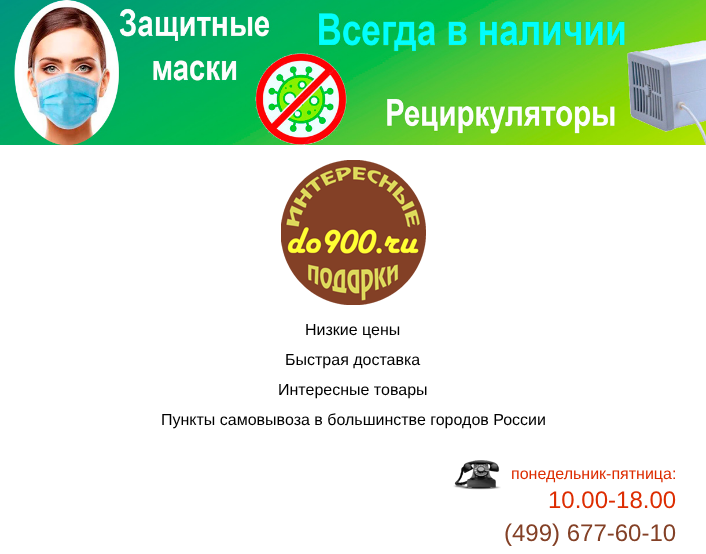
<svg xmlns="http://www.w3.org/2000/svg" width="706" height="554">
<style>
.a{font:16px Liberation Sans;fill:#000}
.b{font:16px Liberation Sans;fill:#dd2c00}
.c{font:24px Liberation Sans;fill:#dd2c00}
.d{font:24px Liberation Sans;fill:#834026}
</style>
<rect width="100%" height="100%" fill="#fff"/>
<image href="1.png" x="0" y="0" width="706" height="145"/>
<image href="2.png" x="281" y="160" width="145" height="145"/>
<image href="3.png" x="453" y="460" width="48" height="30"/>
<text class="a" x="305" y="335">Низкие цены</text>
<text class="a" x="285" y="365">Быстрая доставка</text>
<text class="a" x="278" y="395">Интересные товары</text>
<text class="a" x="161" y="425">Пункты самовывоза в большинстве городов России</text>
<text class="b" x="511" y="479">понедельник-пятница:</text>
<text class="c" x="548" y="508">10.00-18.00</text>
<text class="d" x="504" y="541">(499) 677-60-10</text>
</svg>
